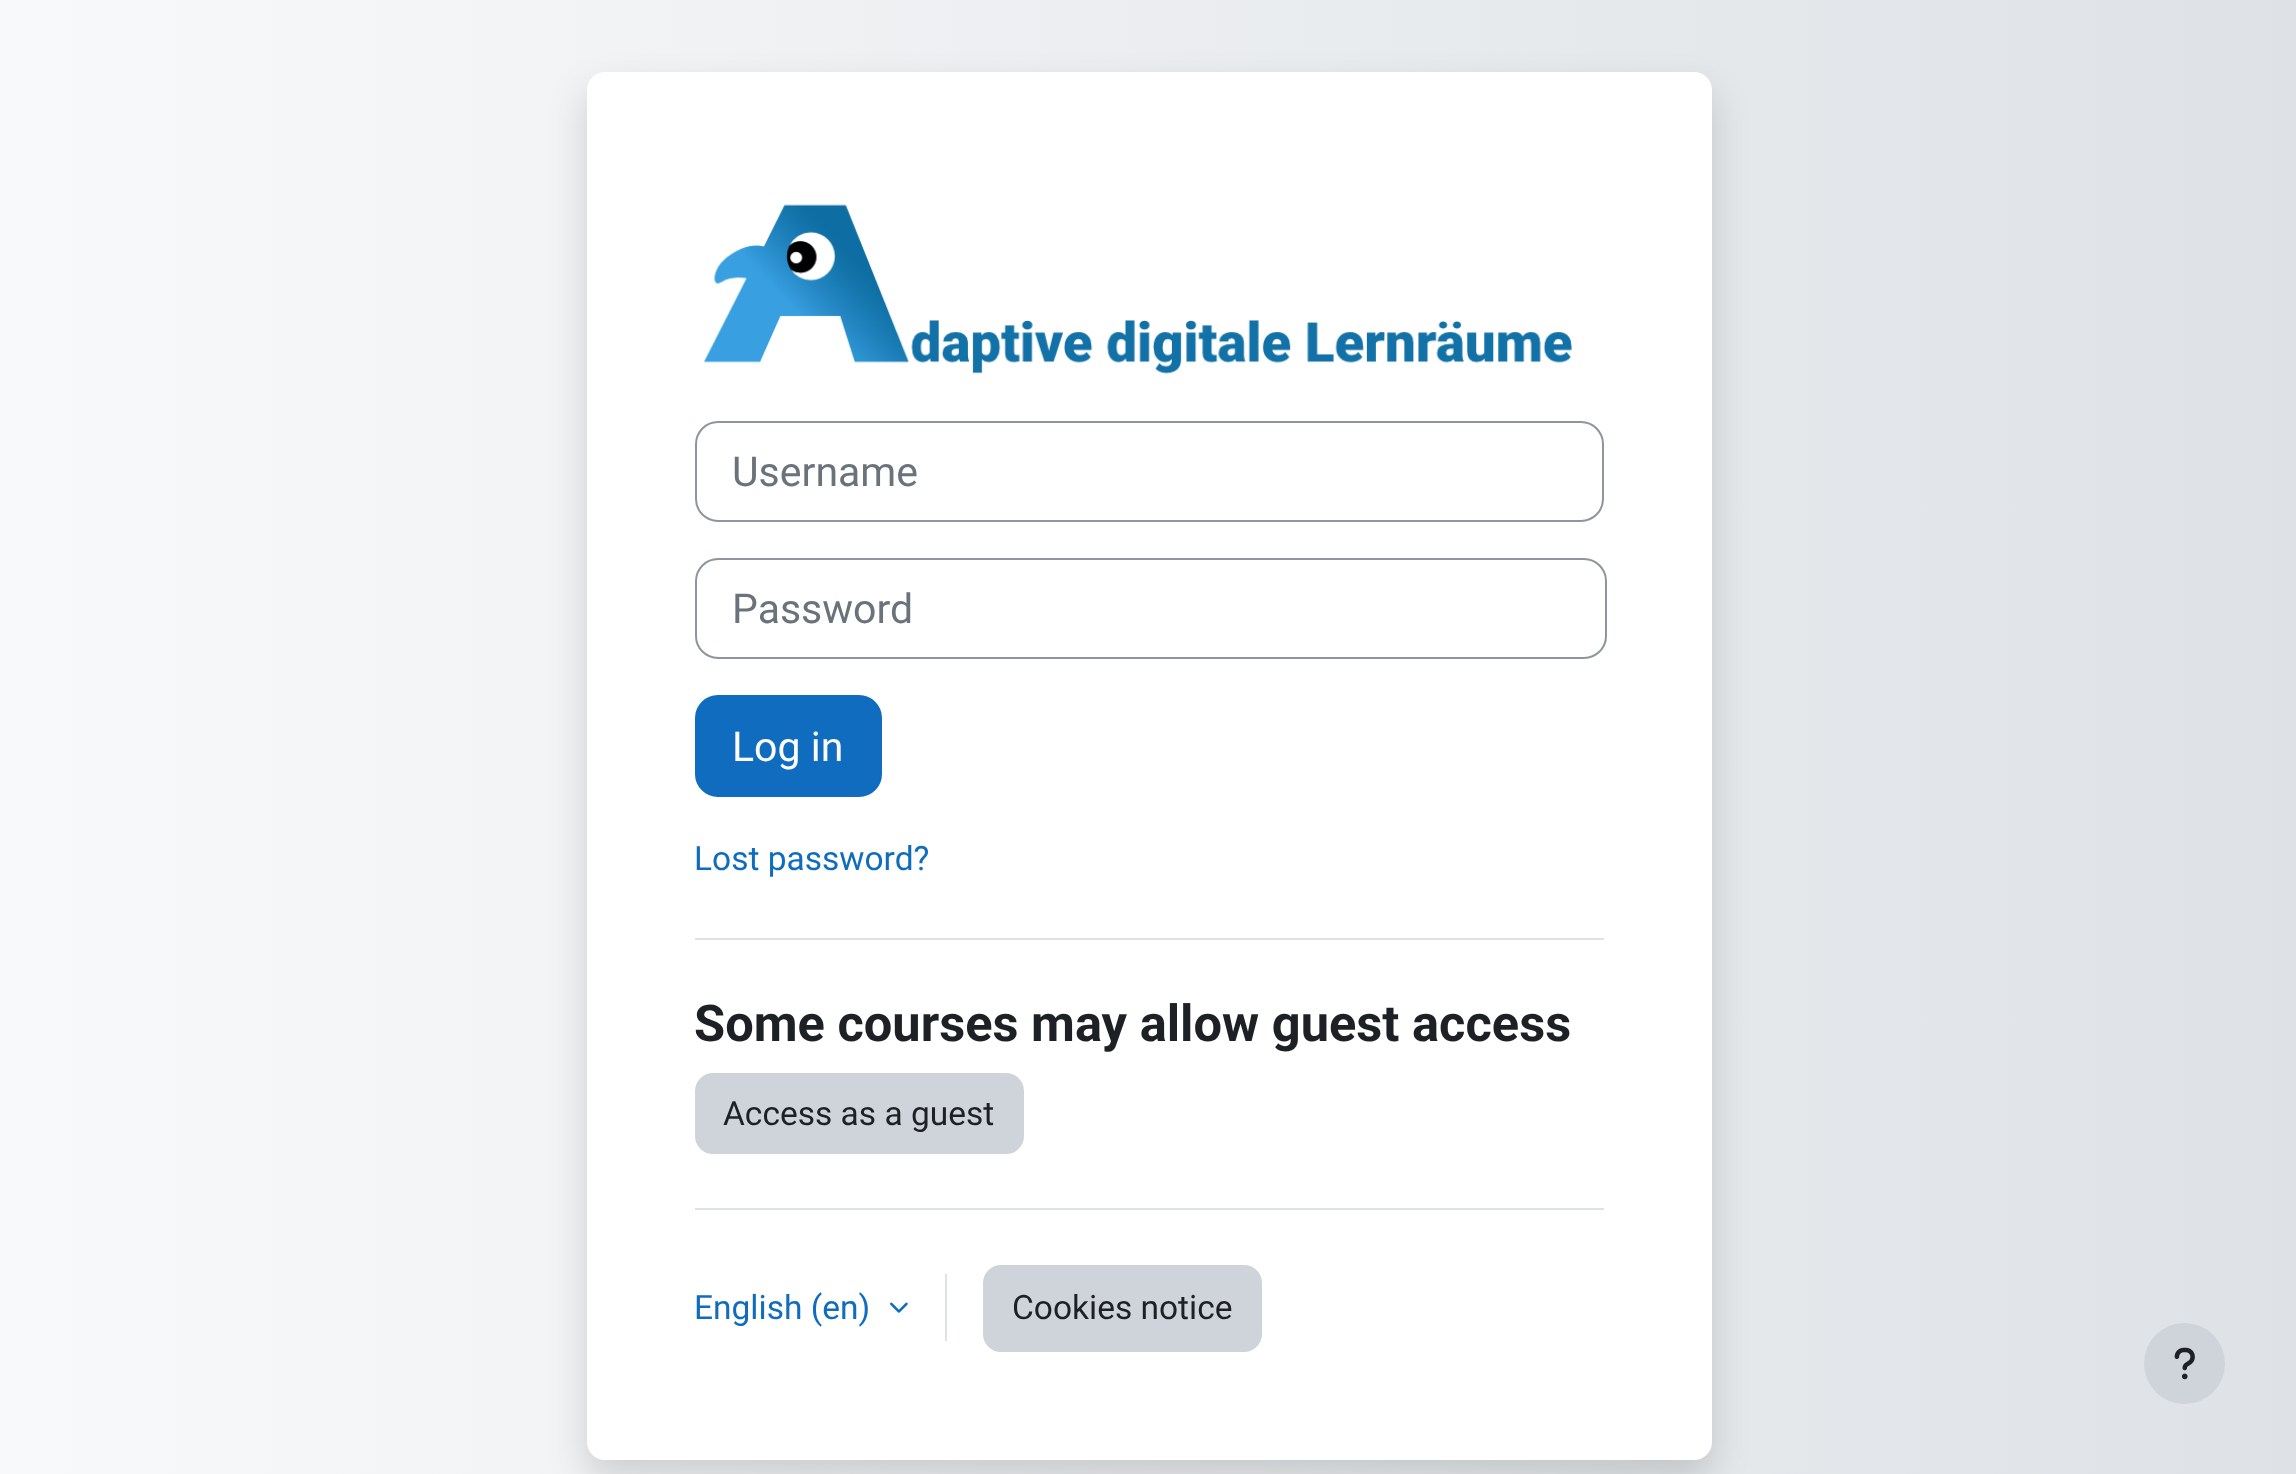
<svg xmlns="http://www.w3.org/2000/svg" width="2296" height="1474">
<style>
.a{font:41px Roboto;fill:#6a737b}
.b{font:41px Roboto;fill:#fff}
.c{font:33.5px Roboto;fill:#0f6cbf}
.d{font:bold 50.6px Roboto;fill:#1d2125}
.e{font:33.5px Roboto;fill:#1d2125}
</style>
<defs>
<linearGradient id="g1" gradientUnits="userSpaceOnUse" x1="0" y1="766" x2="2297" y2="766"><stop offset="0" stop-color="#f8f9fa"/><stop offset="1" stop-color="#dee2e6"/></linearGradient>
</defs>
<rect width="100%" height="100%" fill="#fff"/>
<path fill="url(#g1)" d="M0 0h2296v1474H0z"/>
<rect fill="#00000026" filter="blur(18px)" x="587" y="90" width="1125" height="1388" rx="18"/>
<rect fill="#fff" x="587" y="72" width="1125" height="1388" rx="18"/>
<image href="1.png" x="703" y="204" width="869" height="170"/>
<rect fill="none" stroke="#8f959e" stroke-width="2" x="696" y="422" width="907" height="99" rx="22"/>
<rect fill="none" stroke="#8f959e" stroke-width="2" x="696" y="559" width="910" height="99" rx="22"/>
<rect fill="#0f6cbf" stroke="#0f6cbf" stroke-width="2" x="696" y="696" width="185" height="100" rx="22"/>
<path fill="#dee2e6" d="M695 938h909v2H695z"/>
<rect fill="#ced4da" stroke="#ced4da" stroke-width="2" x="696" y="1074" width="327" height="79" rx="17"/>
<path fill="#dee2e6" d="M695 1208h909v2H695z"/>
<image href="2.png" x="890" y="1302" width="18" height="11"/>
<path fill="#dee2e6" d="M945 1274h2v67H945z"/>
<rect fill="#ced4da" stroke="#ced4da" stroke-width="2" x="984" y="1266" width="277" height="85" rx="17"/>
<circle fill="#ced4da" cx="2184.5" cy="1363.5" r="40.5"/>
<image href="3.png" x="2174" y="1347" width="21" height="33"/>
<text class="a" x="732" y="486">Username</text>
<text class="a" x="732" y="623">Password</text>
<text class="b" x="732" y="761">Log in</text>
<text class="c" x="694" y="870">Lost password?</text>
<text class="d" x="694" y="1041">Some courses may allow guest access</text>
<text class="e" x="723" y="1125">Access as a guest</text>
<text class="c" x="694" y="1319">English (en)</text>
<text class="e" x="1012" y="1319">Cookies notice</text>
</svg>
